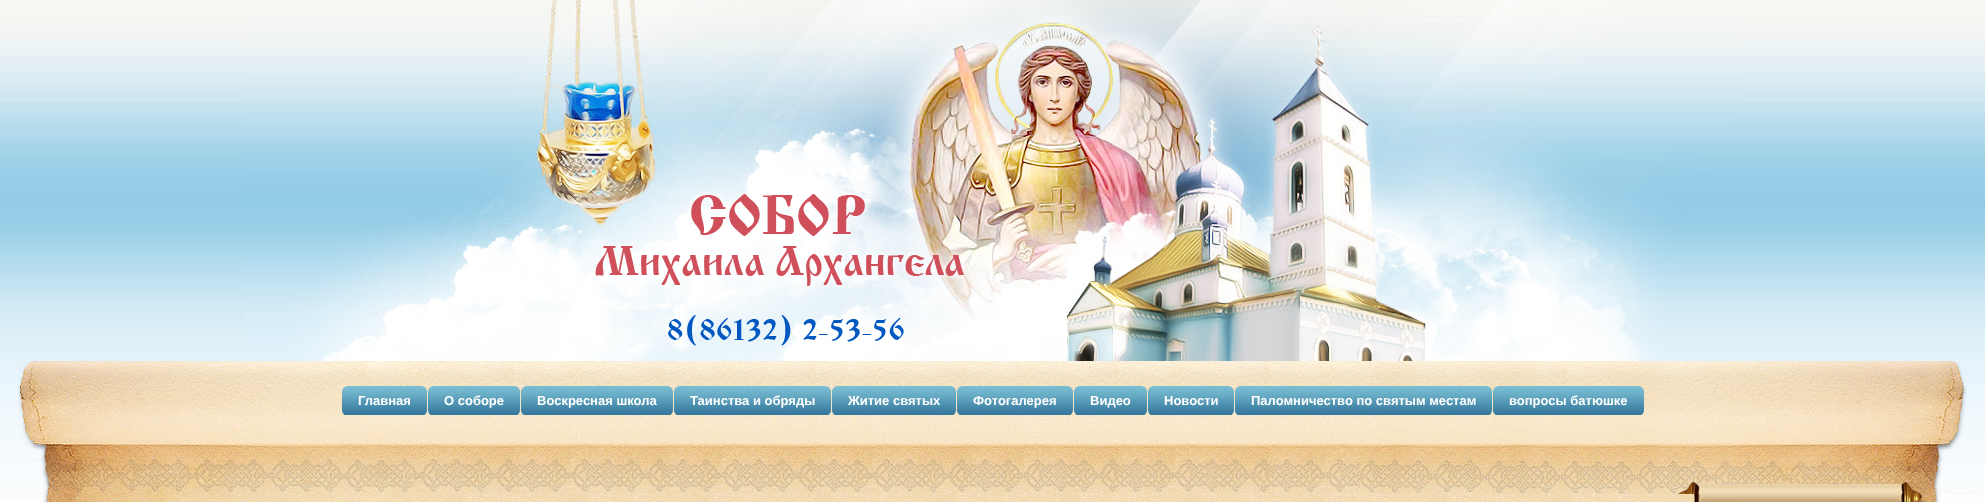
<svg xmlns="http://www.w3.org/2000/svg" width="1985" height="502">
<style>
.a{font:bold 13px Liberation Sans;fill:#fff}
</style>
<rect width="100%" height="100%" fill="#fff"/>
<image href="1.png" x="0" y="0" width="1985" height="502"/>
<image href="2.png" x="243" y="0" width="1500" height="362"/>
<image href="3.png" x="595" y="192" width="371" height="96"/>
<image href="4.png" x="668" y="315" width="236" height="31"/>
<image href="6.png" x="360" y="361" width="1265" height="133"/>
<image href="5.png" x="18" y="361" width="477" height="133"/>
<image href="7.png" x="1360" y="361" width="607" height="133"/>
<image href="8.png" x="411" y="386" width="16" height="29"/>
<image href="9.png" x="342" y="386" width="69" height="29"/>
<image href="10.png" x="504" y="386" width="16" height="29"/>
<image href="11.png" x="428" y="386" width="76" height="29"/>
<image href="12.png" x="657" y="386" width="16" height="29"/>
<image href="13.png" x="521" y="386" width="136" height="29"/>
<image href="14.png" x="815" y="386" width="16" height="29"/>
<image href="15.png" x="674" y="386" width="141" height="29"/>
<image href="16.png" x="940" y="386" width="16" height="29"/>
<image href="17.png" x="832" y="386" width="108" height="29"/>
<image href="18.png" x="1057" y="386" width="16" height="29"/>
<image href="19.png" x="957" y="386" width="100" height="29"/>
<image href="20.png" x="1131" y="386" width="16" height="29"/>
<image href="21.png" x="1074" y="386" width="57" height="29"/>
<image href="22.png" x="1218" y="386" width="16" height="29"/>
<image href="23.png" x="1148" y="386" width="70" height="29"/>
<image href="24.png" x="1476" y="386" width="16" height="29"/>
<image href="25.png" x="1235" y="386" width="241" height="29"/>
<image href="26.png" x="1628" y="386" width="16" height="29"/>
<image href="27.png" x="1493" y="386" width="135" height="29"/>
<image href="28.png" x="0" y="494" width="420" height="8"/>
<image href="29.png" x="1694" y="494" width="291" height="8"/>
<text class="a" x="358" y="405">Главная</text>
<text class="a" x="444" y="405">О соборе</text>
<text class="a" x="537" y="405">Воскресная школа</text>
<text class="a" x="690" y="405">Таинства и обряды</text>
<text class="a" x="848" y="405">Житие святых</text>
<text class="a" x="973" y="405">Фотогалерея</text>
<text class="a" x="1090" y="405">Видео</text>
<text class="a" x="1164" y="405">Новости</text>
<text class="a" x="1251" y="405">Паломничество по святым местам</text>
<text class="a" x="1509" y="405">вопросы батюшке</text>
</svg>
